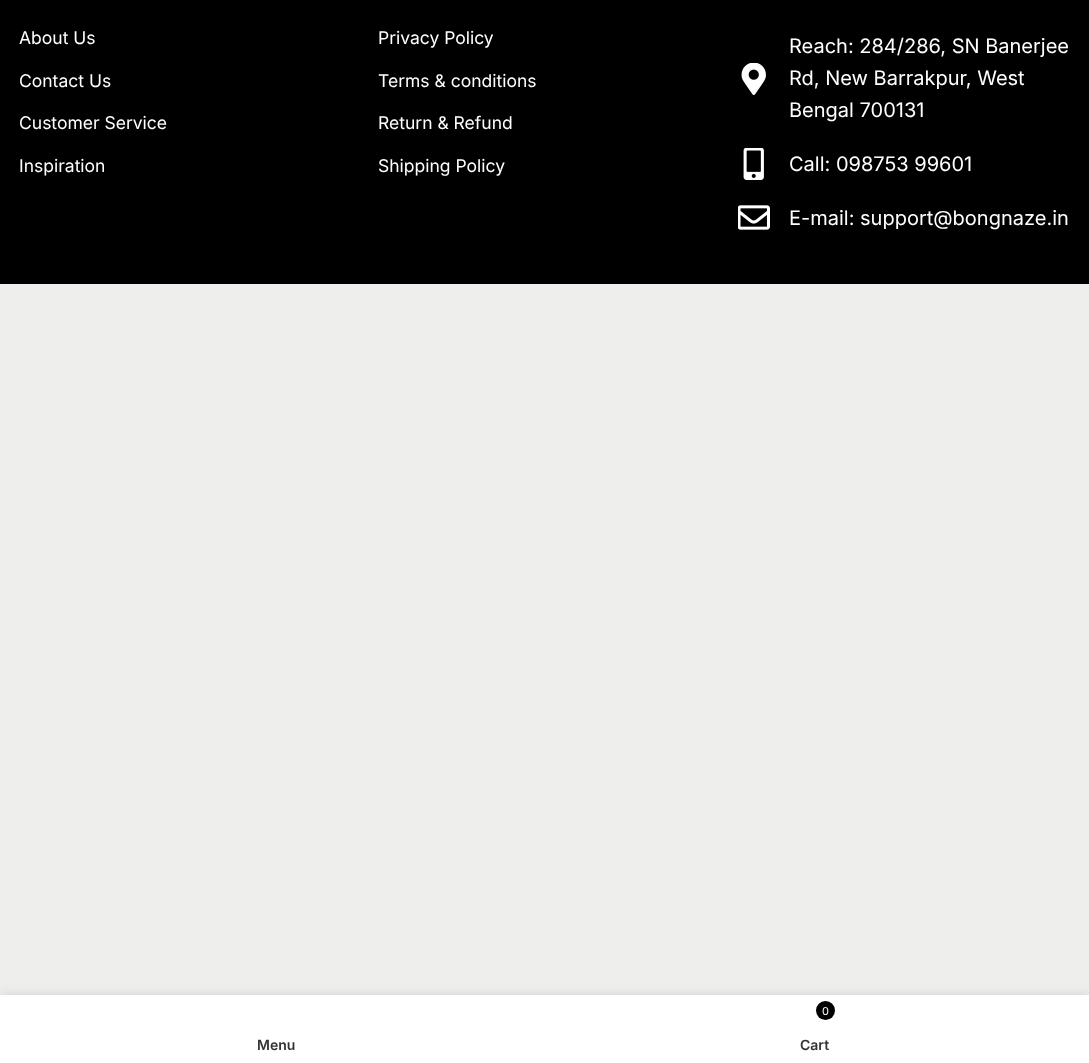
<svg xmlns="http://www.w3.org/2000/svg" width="1089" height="1063">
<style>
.a{font:17.5px Inter;fill:#fff}
.b{font:20px Inter;fill:#fff}
.c{font:600 14px Inter;fill:#333}
.d{font:11px Inter;fill:#fff}
</style>
<rect width="100%" height="100%" fill="#000"/>
<image href="1.png" x="741" y="63" width="25" height="32"/>
<image href="2.png" x="743" y="148" width="21" height="32"/>
<image href="3.png" x="738" y="205" width="32" height="25"/>
<path fill="#eeeeec" d="M0 285h1089v710H0z"/>
<path fill="#f0f0ee" d="M0 284h1089v1H0z"/>
<path fill="#0000001f" filter="blur(5.5px)" d="M0 995h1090v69H0z"/>
<path fill="#fff" d="M0 995h1089v68H0z"/>
<circle fill="#000" cx="825.5" cy="1010.5" r="9.5"/>
<text class="a" x="19" y="44">About Us</text>
<text class="a" x="19" y="87">Contact Us</text>
<text class="a" x="19" y="129">Customer Service</text>
<text class="a" x="19" y="172">Inspiration</text>
<text class="a" x="378" y="44">Privacy Policy</text>
<text class="a" x="378" y="87">Terms &amp; conditions</text>
<text class="a" x="378" y="129">Return &amp; Refund</text>
<text class="a" x="378" y="172">Shipping Policy</text>
<text class="b" x="789" y="53">Reach: 284/286, SN Banerjee</text>
<text class="b" x="789" y="85">Rd, New Barrakpur, West</text>
<text class="b" x="789" y="117">Bengal 700131</text>
<text class="b" x="789" y="171">Call: 098753 99601</text>
<text class="b" x="789" y="225">E-mail: support@bongnaze.in</text>
<text class="c" x="257" y="1050">Menu</text>
<text class="d" x="822" y="1015">0</text>
<text class="c" x="800" y="1050">Cart</text>
</svg>
